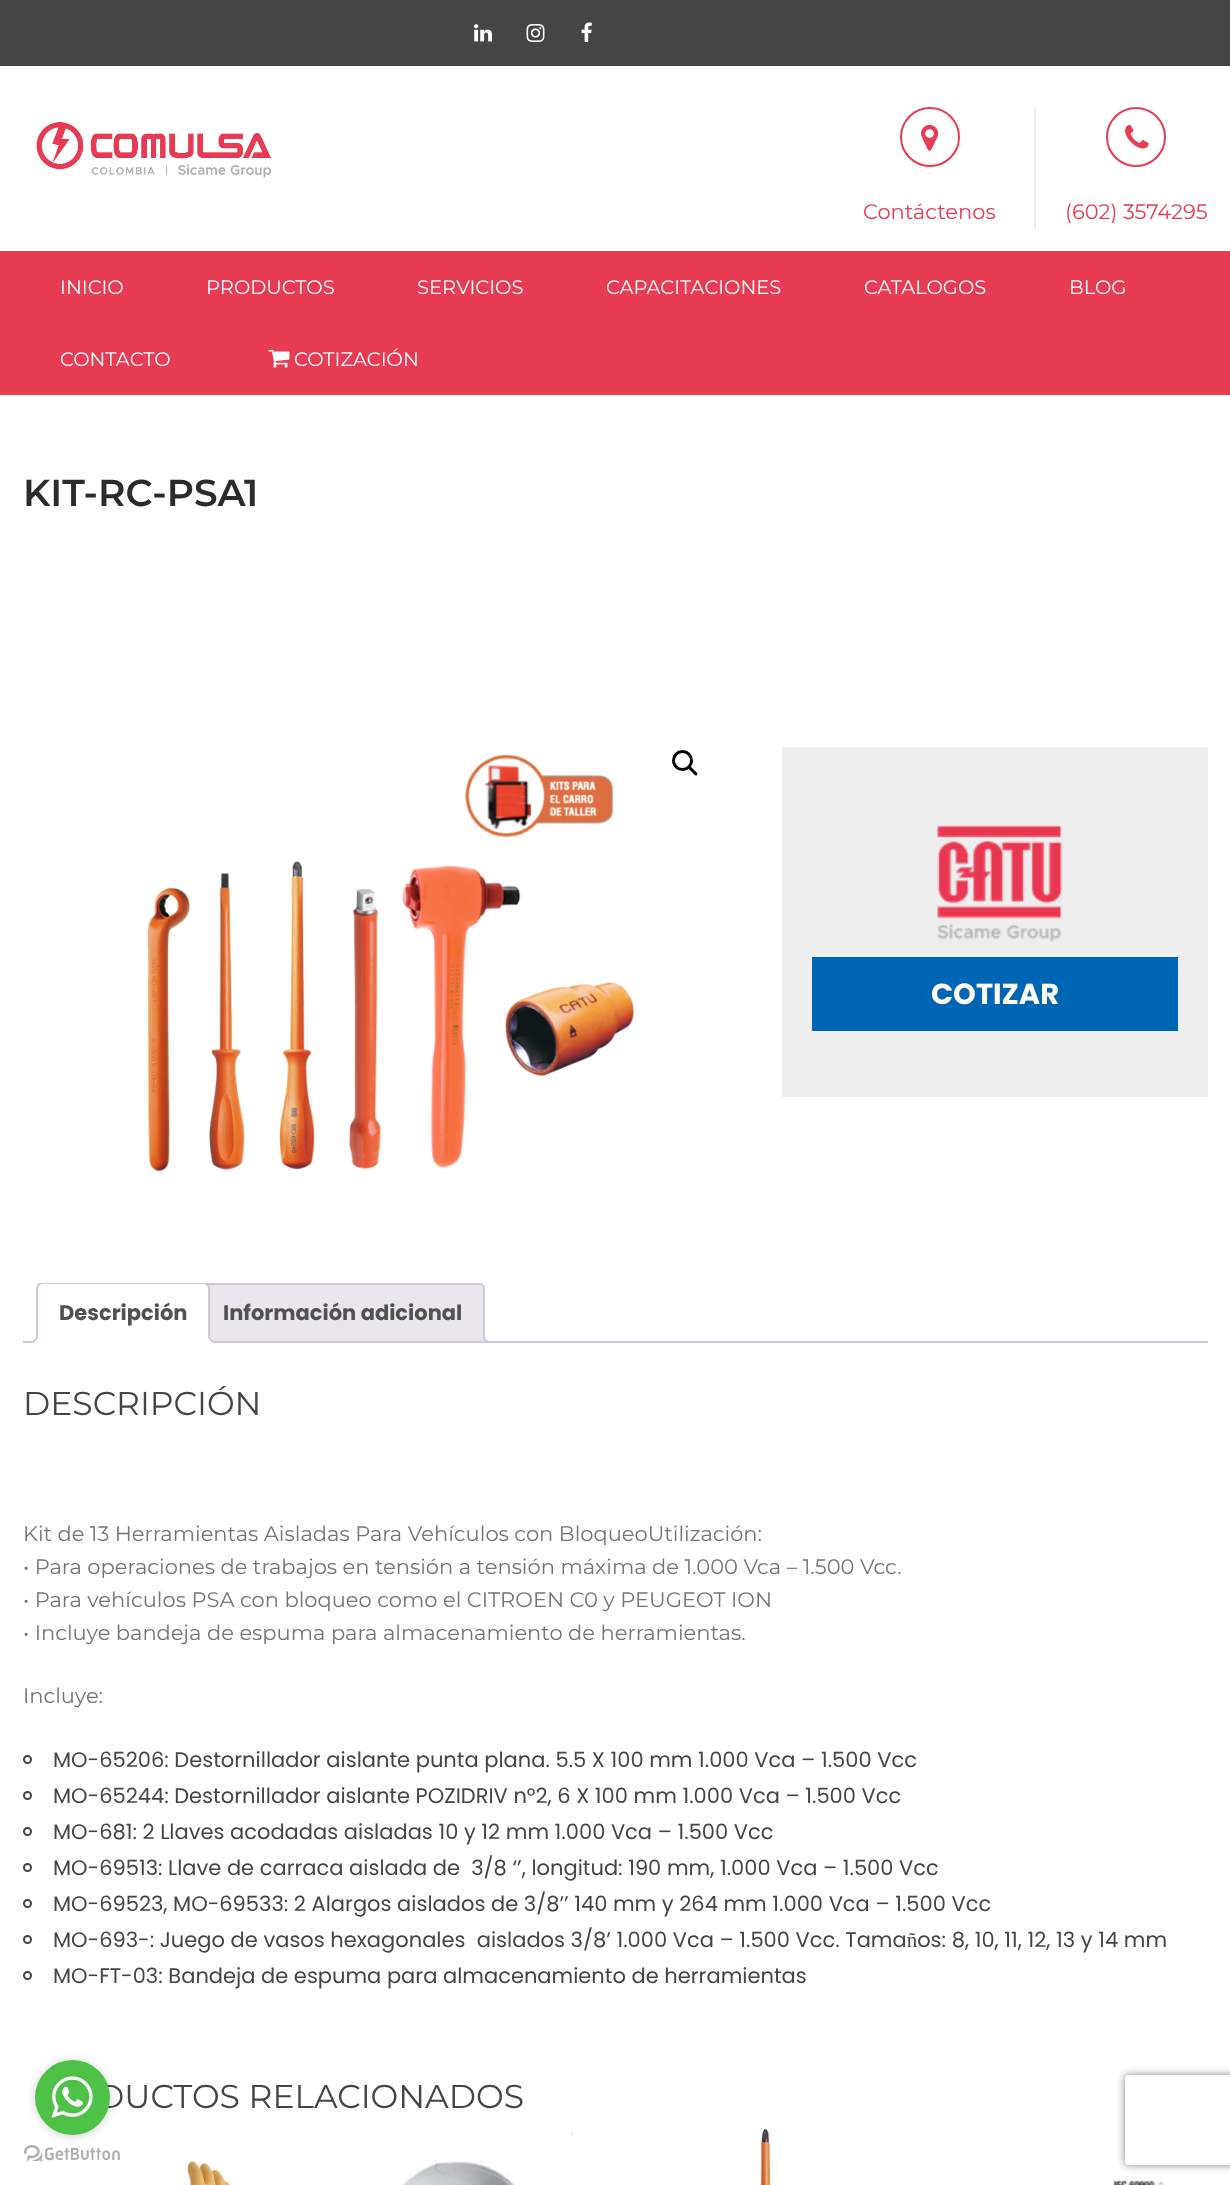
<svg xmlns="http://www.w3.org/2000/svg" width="1230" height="2185">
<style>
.a{font:21px Montserrat;fill:#e83b54}
.b{font:19.5px Montserrat;fill:#fff}
.c{font:600 37.5px Montserrat;fill:#2b2b2b}
.d{font:bold 29px Poppins;fill:#fff}
.e{font:bold 21px Poppins;fill:#515151}
.f{font:33px Montserrat;fill:#424646}
.g{font:21px Montserrat;fill:#757575}
.h{font:21px Poppins;fill:#424646}
</style>
<defs>
<clipPath id="clip1"><path d="M23 1283h1185v60H23z"/></clipPath>
<clipPath id="clip2"><path d="M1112 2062h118v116h-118zm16 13h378c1.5 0 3 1.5 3 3v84c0 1.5-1.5 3-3 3h-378c-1.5 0-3-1.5-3-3v-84c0-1.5 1.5-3 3-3z" clip-rule="evenodd"/></clipPath>
</defs>
<rect width="100%" height="100%" fill="#fff"/>
<path fill="#454545" d="M0 0h1230v66H0z"/>
<image href="1.png" x="474" y="24" width="18" height="18"/>
<image href="2.png" x="526" y="24" width="19" height="18"/>
<image href="3.png" x="581" y="22" width="11" height="20"/>
<image href="4.png" x="36" y="122" width="235" height="56"/>
<path fill="#ebebeb" d="M1034 107h2v121H1034z"/>
<circle fill="none" stroke="#e83b54" stroke-width="2" cx="930" cy="137" r="29"/>
<image href="5.png" x="921" y="124" width="18" height="27"/>
<circle fill="none" stroke="#e83b54" stroke-width="2" cx="1136" cy="137" r="29"/>
<image href="6.png" x="1125" y="125" width="24" height="24"/>
<path fill="#e83b54" d="M0 251h1230v144H0z"/>
<image href="7.png" x="268" y="349" width="22" height="19"/>
<image href="8.png" x="147" y="754" width="488" height="418"/>
<circle fill="none" stroke="#000" stroke-width="3" cx="682.5" cy="760.5" r="9"/>
<path fill="#000" d="M689 767c1.5-2 4 2 5 3c1 1 5 3.5 3 5c-1.5 2-4-2-5-3c-1-1-5-3.5-3-5z"/>
<path fill="#eee" d="M782 747h426v350H782z"/>
<image href="9.png" x="937" y="825" width="126" height="117"/>
<path fill="#0066b4" d="M812 957h366v74H812z"/>
<path fill="#e9e6ed" stroke="#cfc8d8" stroke-width="2" d="M206 1284h273c3 0 5 2 5 5v53h-283v-53c0-3 2-5 5-5z"/>
<g clip-path="url(#clip1)">
<path fill="#e9e6ed" d="M480 1338c0 6 2 8 8 8v-3.5c-2.5-.5-4-2-5-4.5z"/>
</g>
<path fill="#cfc8d8" fill-rule="evenodd" d="M483 1335h7.5v7.5c-4 0-7.5-1.5-7.5-6zm1.5 0h6v6c-3 0-6-1-6-4.5z"/>
<path fill="#cfc8d8" d="M23 1341h1185v2H23z"/>
<path fill="#fff" d="M42 1283h162c3.5 0 6 2.5 6 6v54h-174v-54c0-3.5 2.5-6 6-6z"/>
<g clip-path="url(#clip1)">
<path fill="#cfc8d8" d="M42 1284c-1 0-2 1-3 2l-1-2c6-7 19-2 30-2h138l2 2l-1 2c-1-1-2-2-3-2z"/>
</g>
<path fill="#cfc8d8" d="M210 1342v-54c0-1-1-3-2-4l-1 2l1 2v52z"/>
<path fill="#fff" d="M210 1342h-174l2-2v1h170v-1z"/>
<path fill="#cfc8d8" d="M36 1288v54l2-2v-52l1-2l-1-2c-1 1-2 3-2 4z"/>
<g clip-path="url(#clip1)">
<path fill="#fff" d="M33 1342.5v3.5c6 0 8-2 8-8h-3.5c-.5 2-2.5 4-4.5 4.5z"/>
</g>
<path fill="#cfc8d8" fill-rule="evenodd" d="M30 1335h7.5c0 5.5-2 7.5-7.5 7.5zm0 0h6c0 4.5-1.5 6-6 6z"/>
<g clip-path="url(#clip1)">
<path fill="#fff" d="M206 1338c0 5 1.5 8 7 8v-3.5c-2-.5-4-2.5-4.5-4.5z"/>
</g>
<path fill="#cfc8d8" fill-rule="evenodd" d="M208.5 1335h7.5v7.5c-4 0-7.5-1.5-7.5-6zm1.5 0h6v6c-3 0-6-1-6-4.5z"/>
<circle fill="none" stroke="#424646" stroke-width="2" cx="27.5" cy="1759.5" r="3.5"/>
<circle fill="none" stroke="#424646" stroke-width="2" cx="27.5" cy="1795.5" r="3.5"/>
<circle fill="none" stroke="#424646" stroke-width="2" cx="27.5" cy="1831.5" r="3.5"/>
<circle fill="none" stroke="#424646" stroke-width="2" cx="27.5" cy="1867.5" r="3.5"/>
<circle fill="none" stroke="#424646" stroke-width="2" cx="27.5" cy="1903.5" r="3.5"/>
<circle fill="none" stroke="#424646" stroke-width="2" cx="27.5" cy="1939.5" r="3.5"/>
<circle fill="none" stroke="#424646" stroke-width="2" cx="27.5" cy="1975.5" r="3.5"/>
<image href="10.png" x="187" y="2161" width="44" height="24"/>
<image href="11.png" x="401" y="2133" width="172" height="52"/>
<image href="12.png" x="760" y="2128" width="11" height="57"/>
<image href="13.png" x="1112" y="2178" width="53" height="7"/>
<image href="15.png" x="24" y="2145" width="96" height="17"/>
<rect fill="#88888866" filter="blur(5px)" x="35" y="2061" width="75" height="75" rx="37.5"/>
<g clip-path="url(#clip2)">
<rect fill="#808080" filter="blur(4px)" x="1125" y="2075" width="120" height="90" rx="3"/>
</g>
<text class="a" x="863" y="219">Contáctenos</text>
<text class="a" x="1065" y="219">(602) 3574295</text>
<text class="b" x="60" y="294">INICIO</text>
<text class="b" x="206" y="294">PRODUCTOS</text>
<text class="b" x="417" y="294">SERVICIOS</text>
<text class="b" x="606" y="294">CAPACITACIONES</text>
<text class="b" x="864" y="294">CATALOGOS</text>
<text class="b" x="1069" y="294">BLOG</text>
<text class="b" x="60" y="366">CONTACTO</text>
<text class="b" x="294" y="366">COTIZACIÓN</text>
<text class="c" x="23" y="506">KIT-RC-PSA1</text>
<text class="d" x="931" y="1004">COTIZAR</text>
<text class="e" x="59" y="1320">Descripción</text>
<text class="e" x="223" y="1320">Información adicional</text>
<text class="f" x="23" y="1415">DESCRIPCIÓN</text>
<text class="g" x="23" y="1541">Kit de 13 Herramientas Aisladas Para Vehículos con BloqueoUtilización:</text>
<text class="g" x="23" y="1574">• Para operaciones de trabajos en tensión a tensión máxima de 1.000 Vca – 1.500 Vcc.</text>
<text class="g" x="23" y="1607">• Para vehículos PSA con bloqueo como el CITROEN C0 y PEUGEOT ION</text>
<text class="g" x="23" y="1640">• Incluye bandeja de espuma para almacenamiento de herramientas.</text>
<text class="g" x="23" y="1703">Incluye:</text>
<text class="h" x="53" y="1767">MO-65206: Destornillador aislante punta plana. 5.5 X 100 mm 1.000 Vca – 1.500 Vcc</text>
<text class="h" x="53" y="1803">MO-65244: Destornillador aislante POZIDRIV n°2, 6 X 100 mm 1.000 Vca – 1.500 Vcc</text>
<text class="h" x="53" y="1839">MO-681: 2 Llaves acodadas aisladas 10 y 12 mm 1.000 Vca – 1.500 Vcc</text>
<text class="h" xml:space="preserve" x="53" y="1875">MO-69513: Llave de carraca aislada de  3/8 ‘’, longitud: 190 mm, 1.000 Vca – 1.500 Vcc</text>
<text class="h" x="53" y="1911">MO-69523, MO-69533: 2 Alargos aislados de 3/8’’ 140 mm y 264 mm 1.000 Vca – 1.500 Vcc</text>
<text class="h" xml:space="preserve" x="53" y="1947">MO-693-: Juego de vasos hexagonales  aislados 3/8’ 1.000 Vca – 1.500 Vcc. Tamaños: 8, 10, 11, 12, 13 y 14 mm</text>
<text class="h" x="53" y="1983">MO-FT-03: Bandeja de espuma para almacenamiento de herramientas</text>
<text class="f" x="97" y="2108">DUCTOS RELACIONADOS</text>
<circle fill="#4dc247" cx="72.5" cy="2097.5" r="37.5"/>
<image href="14.png" x="51" y="2076" width="42" height="42"/>
</svg>
